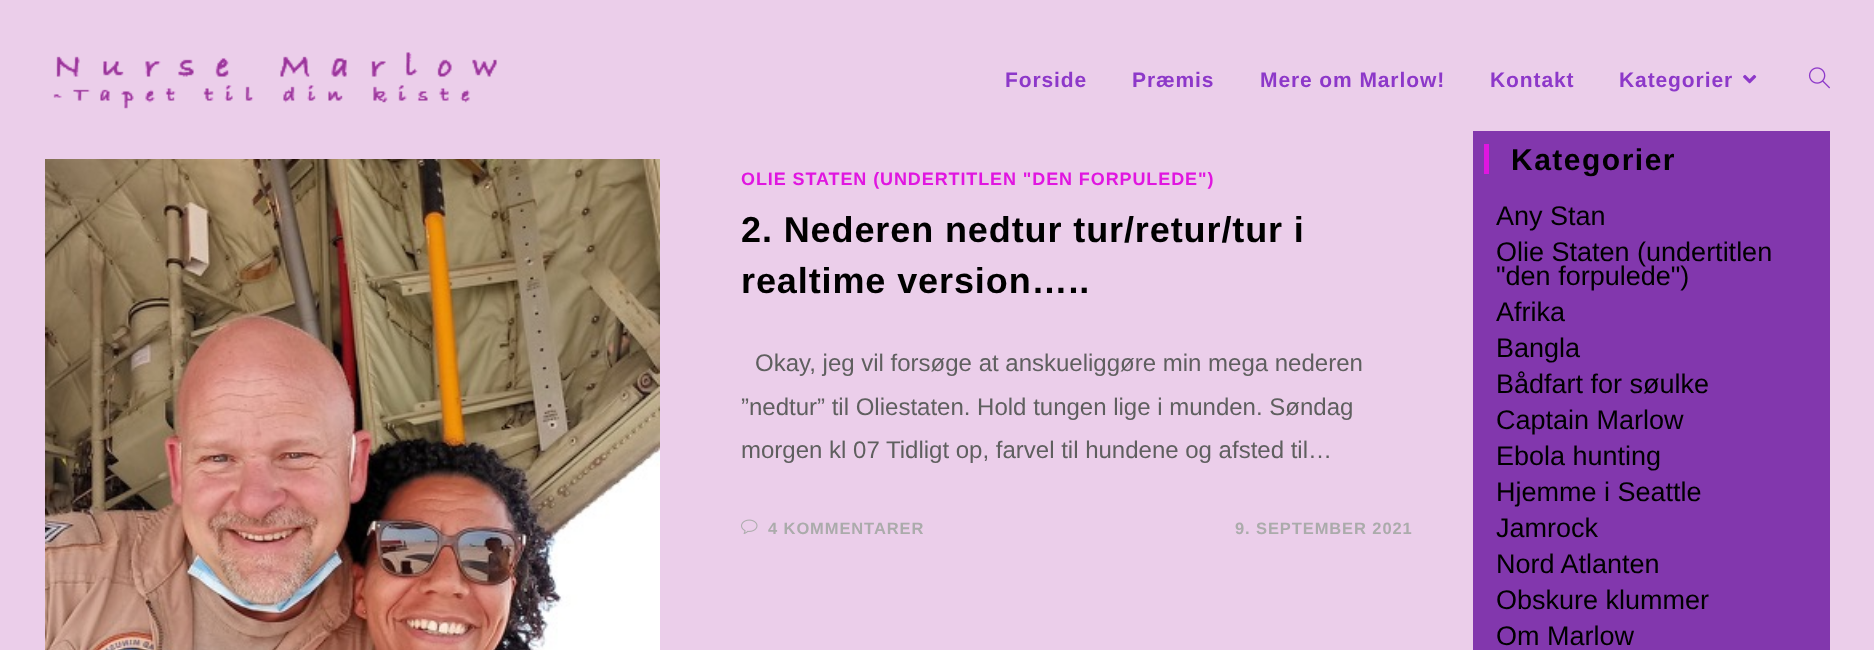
<svg xmlns="http://www.w3.org/2000/svg" width="1874" height="650">
<style>
.a{font:bold 21px Liberation Sans;letter-spacing:0.9px;fill:#8d38c9}
.b{font:bold 18px Liberation Sans;letter-spacing:0.9px;fill:#e016e0}
.c{font:bold 36px Liberation Sans;letter-spacing:0.9px;fill:#000}
.d{font:24px Liberation Sans;fill:#5f5f5f}
.e{font:bold 16.5px Liberation Sans;letter-spacing:0.9px;fill:#ababab}
.f{font:bold 30px Liberation Sans;letter-spacing:1.5px;fill:#000}
.g{font:27px Liberation Sans;fill:#000}
</style>
<rect width="100%" height="100%" fill="#ebceea"/>
<image href="1.png" x="53" y="52" width="444" height="57"/>
<image href="2.png" x="1743" y="74" width="14" height="10"/>
<image href="3.png" x="1808" y="67" width="22" height="22"/>
<image href="4.png" x="45" y="159" width="615" height="491"/>
<image href="5.png" x="741" y="519" width="17" height="15"/>
<path fill="#8237ad" d="M1473 131h357v519H1473z"/>
<path fill="#e016e0" d="M1484 144h5v30H1484z"/>
<text class="a" x="1005" y="87">Forside</text>
<text class="a" x="1132" y="87">Præmis</text>
<text class="a" x="1260" y="87">Mere om Marlow!</text>
<text class="a" x="1490" y="87">Kontakt</text>
<text class="a" x="1619" y="87">Kategorier</text>
<text class="b" x="741" y="185">OLIE STATEN (UNDERTITLEN "DEN FORPULEDE")</text>
<text class="c" x="741" y="242">2. Nederen nedtur tur/retur/tur i</text>
<text class="c" x="741" y="293">realtime version…..</text>
<text class="d" x="755" y="371">Okay, jeg vil forsøge at anskueliggøre min mega nederen</text>
<text class="d" x="741" y="415">”nedtur” til Oliestaten. Hold tungen lige i munden. Søndag</text>
<text class="d" x="741" y="458">morgen kl 07 Tidligt op, farvel til hundene og afsted til…</text>
<text class="e" x="768" y="534">4 KOMMENTARER</text>
<text class="e" x="1235" y="534">9. SEPTEMBER 2021</text>
<text class="f" x="1511" y="170">Kategorier</text>
<text class="g" x="1496" y="225">Any Stan</text>
<text class="g" x="1496" y="261">Olie Staten (undertitlen</text>
<text class="g" x="1496" y="285">"den forpulede")</text>
<text class="g" x="1496" y="321">Afrika</text>
<text class="g" x="1496" y="357">Bangla</text>
<text class="g" x="1496" y="393">Bådfart for søulke</text>
<text class="g" x="1496" y="429">Captain Marlow</text>
<text class="g" x="1496" y="465">Ebola hunting</text>
<text class="g" x="1496" y="501">Hjemme i Seattle</text>
<text class="g" x="1496" y="537">Jamrock</text>
<text class="g" x="1496" y="573">Nord Atlanten</text>
<text class="g" x="1496" y="609">Obskure klummer</text>
<text class="g" x="1496" y="645">Om Marlow</text>
</svg>
